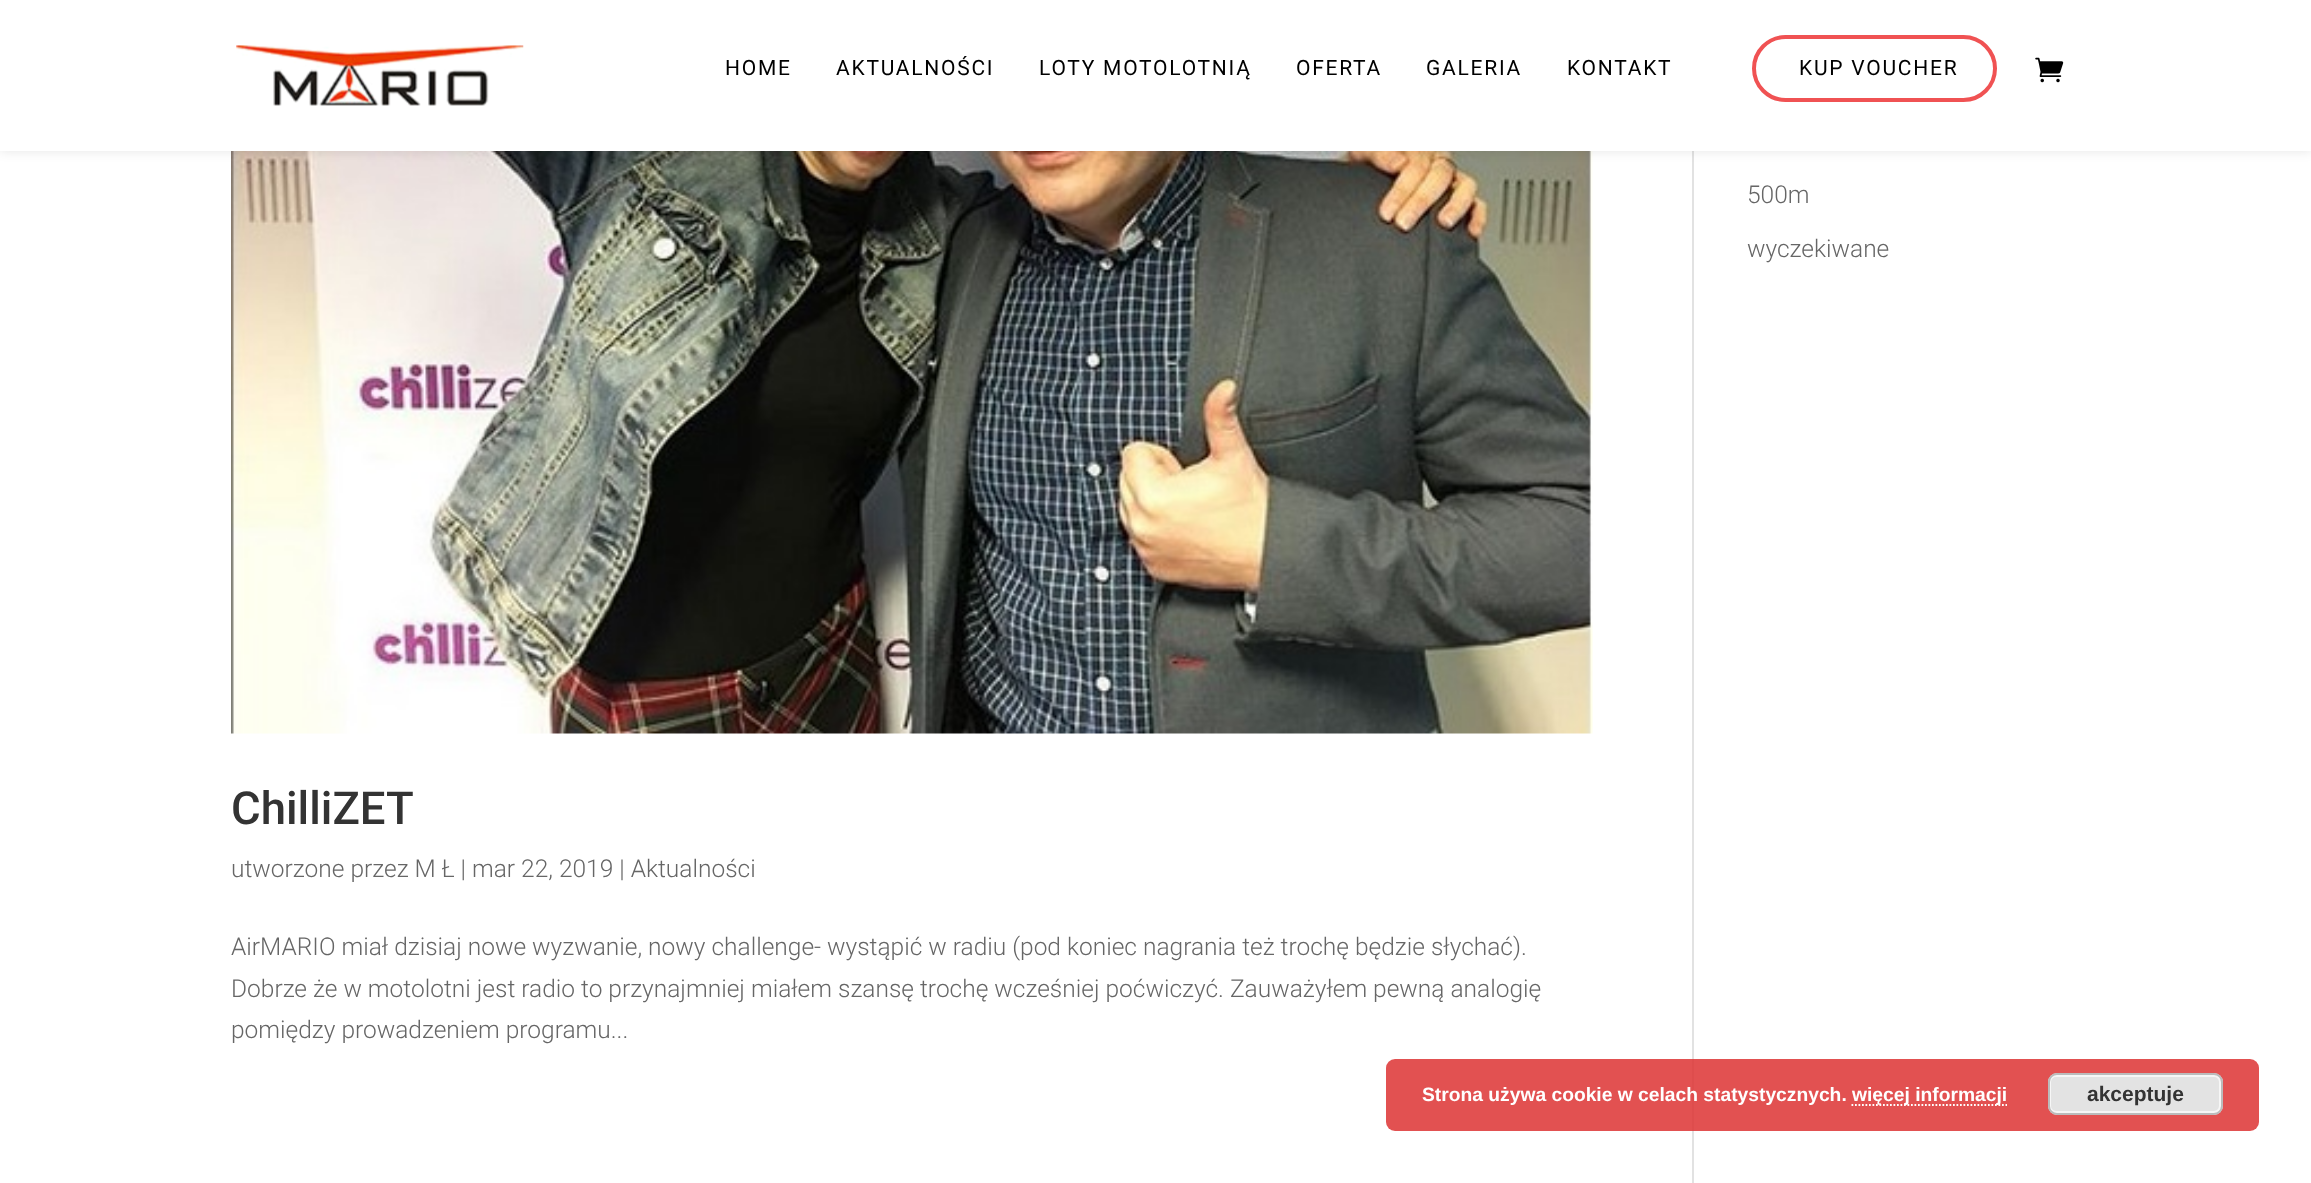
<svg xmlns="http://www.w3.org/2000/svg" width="2311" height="1183">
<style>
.a{font:21px Roboto;letter-spacing:1.75px;fill:#000}
.b{font:300 24.5px Roboto;fill:#666}
.c{font:500 45.5px Roboto;fill:#333}
.d{font:bold 19.25px Liberation Sans;fill:#fff}
.e{font:bold 21px Liberation Sans;fill:#333}
</style>
<rect width="100%" height="100%" fill="#fff"/>
<path fill="#e2e2e2" d="M1692 151h2v1032H1692z"/>
<image href="3.png" x="231" y="151" width="1362" height="583"/>
<path fill="#0000001a" filter="blur(6px)" d="M0 0h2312v151H0z"/>
<path fill="#fff" d="M0 0h2311v151H0z"/>
<image href="1.png" x="236" y="45" width="288" height="61"/>
<rect fill="none" stroke="#f05253" stroke-width="4" x="1754" y="37" width="241" height="63" rx="31.5"/>
<image href="2.png" x="2035" y="57" width="29" height="26"/>
<rect fill="#dd3333d9" x="1386" y="1059" width="873" height="72" rx="9"/>
<path fill="none" stroke="#fff" stroke-width="1.8" stroke-dasharray="1.75 1.75" d="M1851.5 1105h155.5"/>
<rect fill="#e3e3e3" x="2048" y="1073" width="175" height="42" rx="9"/>
<rect fill="none" stroke="#f6f6f6" stroke-width="2" x="2050" y="1076" width="170" height="36" rx="6"/>
<rect fill="none" stroke="#bbb" stroke-width="2" x="2049" y="1074" width="173" height="40" rx="8"/>
<text class="a" x="725" y="75">HOME</text>
<text class="a" x="836" y="75">AKTUALNOŚCI</text>
<text class="a" x="1039" y="75">LOTY MOTOLOTNIĄ</text>
<text class="a" x="1296" y="75">OFERTA</text>
<text class="a" x="1426" y="75">GALERIA</text>
<text class="a" x="1567" y="75">KONTAKT</text>
<text class="a" x="1799" y="75">KUP VOUCHER</text>
<text class="b" x="1747" y="203">500m</text>
<text class="b" x="1747" y="257">wyczekiwane</text>
<text class="c" x="231" y="824">ChilliZET</text>
<text class="b" x="231" y="877">utworzone przez M Ł | mar 22, 2019 | Aktualności</text>
<text class="b" x="231" y="955">AirMARIO miał dzisiaj nowe wyzwanie, nowy challenge- wystąpić w radiu (pod koniec nagrania też trochę będzie słychać).</text>
<text class="b" x="231" y="997">Dobrze że w motolotni jest radio to przynajmniej miałem szansę trochę wcześniej poćwiczyć. Zauważyłem pewną analogię</text>
<text class="b" x="231" y="1038">pomiędzy prowadzeniem programu...</text>
<text class="d" x="1422" y="1101">Strona używa cookie w celach statystycznych.</text>
<text class="d" x="1852" y="1101">więcej informacji</text>
<text class="e" x="2087" y="1101">akceptuje</text>
</svg>
